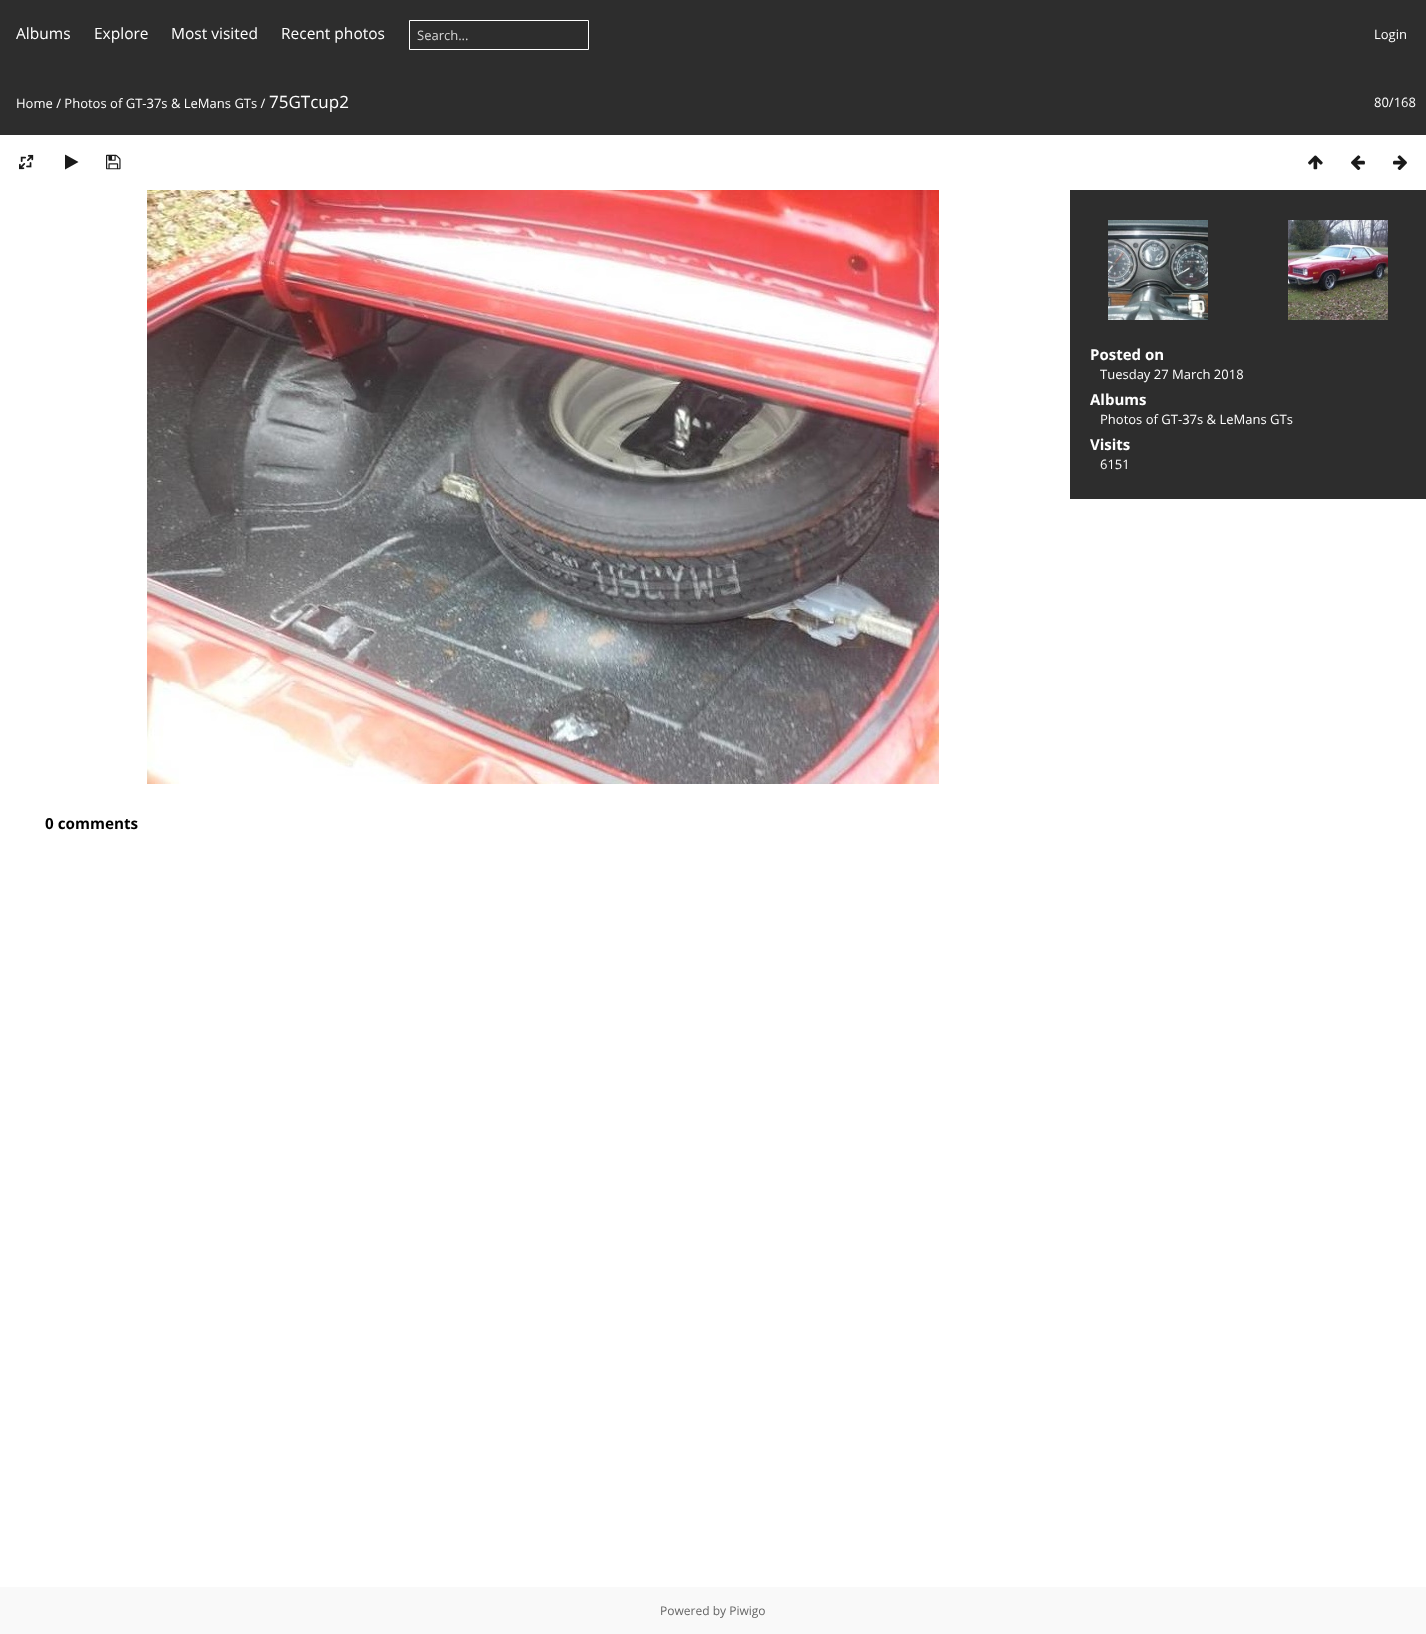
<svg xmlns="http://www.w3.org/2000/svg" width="1426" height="1634">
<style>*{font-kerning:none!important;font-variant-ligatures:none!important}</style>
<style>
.a{font:15.5px Open Sans;fill:#fff}
.b{font:13px Open Sans;fill:#d6d6d6}
.c{font:13px Open Sans;fill:#fff}
.d{font:17px Open Sans;fill:#fff}
.e{font:17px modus;fill:#1a1a1a}
.f{font:bold 15px Open Sans;fill:#fff}
.g{font:bold 15.25px Open Sans;fill:#000}
.h{font:12px Open Sans;fill:#666}
</style>
<rect width="100%" height="100%" fill="#fff"/>
<path fill="#2d2d2d" d="M0 0h1426v135H0z"/>
<path fill="none" stroke="#fff" d="M409.5 20.5h179v29H409.5z"/>
<image href="1.png" x="19" y="154" width="15" height="16"/>
<image href="2.png" x="147" y="190" width="792" height="594"/>
<path fill="#2d2d2d" d="M1070 190h356v309H1070z"/>
<image href="3.png" x="1108" y="220" width="100" height="100"/>
<image href="4.png" x="1288" y="220" width="100" height="100"/>
<path fill="#f9f9f9" d="M0 1587h1426v47H0z"/>
<text class="a" x="16" y="39">Albums</text>
<text class="a" x="94" y="39">Explore</text>
<text class="a" x="171" y="39">Most visited</text>
<text class="a" x="281" y="39">Recent photos</text>
<text class="b" x="417" y="40">Search...</text>
<text class="c" x="1374" y="39">Login</text>
<text class="c" x="16" y="108">Home / Photos of GT-37s &amp; LeMans GTs /</text>
<text class="d" x="269" y="108">75GTcup2</text>
<text class="c" x="1374" y="107">80/168</text>
<text class="e" x="65" y="168">▶</text>
<text class="e" x="106" y="168">💾</text>
<text class="e" x="1308" y="168">↑</text>
<text class="e" x="1351" y="168">←</text>
<text class="e" x="1393" y="168">→</text>
<text class="f" x="1090" y="360">Posted on</text>
<text class="c" x="1100" y="379">Tuesday 27 March 2018</text>
<text class="f" x="1090" y="405">Albums</text>
<text class="c" x="1100" y="424">Photos of GT-37s &amp; LeMans GTs</text>
<text class="f" x="1090" y="450">Visits</text>
<text class="c" x="1100" y="469">6151</text>
<text class="g" x="45" y="829">0 comments</text>
<text class="h" x="660" y="1615">Powered by Piwigo</text>
</svg>
